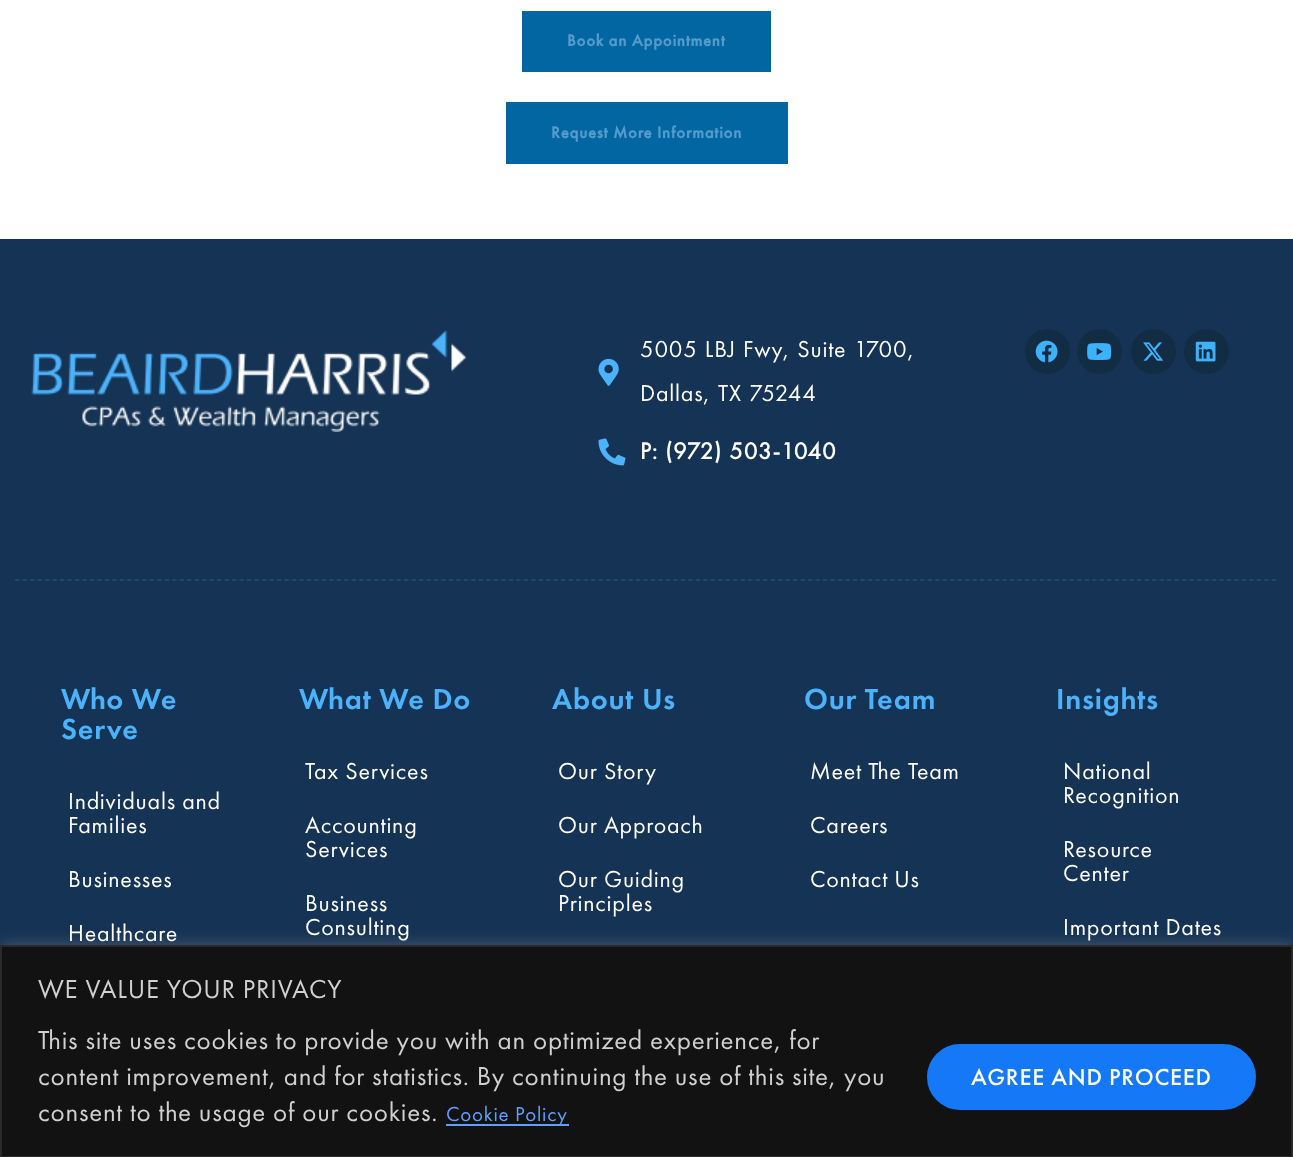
<svg xmlns="http://www.w3.org/2000/svg" width="1293" height="1157">
<style>
.a{font:bold 16.75px Futura PT;letter-spacing:0.75px;fill:#559bcb}
.b{font:24px Futura PT;letter-spacing:0.75px;fill:#fff}
.c{font:bold 24px 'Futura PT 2';letter-spacing:0.75px;fill:#fff}
.d{font:500 30px Futura PT;letter-spacing:0.75px;fill:#4bb2fb}
.e{font:27px Futura PT;letter-spacing:0.75px;fill:#d0d0d0}
.f{font:21px Futura PT;letter-spacing:0.75px;fill:#609fff}
.g{font:500 24px 'Futura PT 2';letter-spacing:0.75px;fill:#fff}
</style>
<rect width="100%" height="100%" fill="#fff"/>
<path fill="#0166a2" d="M522 11h249v61H522z"/>
<path fill="#0166a2" d="M506 102h282v62H506z"/>
<path fill="#153354" d="M0 239h1293v706H0z"/>
<image href="1.png" x="31" y="330" width="436" height="102"/>
<image href="2.png" x="598" y="358" width="21" height="28"/>
<image href="3.png" x="598" y="438" width="28" height="28"/>
<circle fill="#122c44" cx="1047.5" cy="351.5" r="22.5"/>
<image href="4.png" x="1035" y="340" width="23" height="23"/>
<circle fill="#122c44" cx="1099.5" cy="351.5" r="22.5"/>
<image href="5.png" x="1087" y="343" width="25" height="17"/>
<circle fill="#122c44" cx="1153.5" cy="351.5" r="22.5"/>
<image href="6.png" x="1143" y="342" width="21" height="19"/>
<circle fill="#122c44" cx="1206.5" cy="351.5" r="22.5"/>
<image href="7.png" x="1195" y="341" width="21" height="21"/>
<path fill="none" stroke="#1e4f79" stroke-width="1.5" stroke-dasharray="4.5 2.98" d="M15 580h1263"/>
<path fill="#acabab4d" filter="blur(7.5px)" d="M0 944h1293v213H0z"/>
<path fill="#121212" stroke="#2a2a2a" stroke-width="2" d="M1 946h1291v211H1z"/>
<path fill="#609fff" d="M446 1124h123v2H446z"/>
<rect fill="#1578f7" stroke="#1578f7" stroke-width="3" x="928.5" y="1045.5" width="326" height="63" rx="31.5"/>
<text class="a" x="567" y="46">Book an Appointment</text>
<text class="a" x="551" y="138">Request More Information</text>
<text class="b" x="640" y="357" word-spacing="1">5005 LBJ Fwy, Suite 1700,</text>
<text class="b" x="640" y="401" word-spacing="1">Dallas, TX 75244</text>
<text class="c" x="640" y="459" word-spacing="1">P: (972) 503-1040</text>
<text class="d" x="61" y="709">Who We</text>
<text class="d" x="61" y="739">Serve</text>
<text class="b" x="68" y="809">Individuals and</text>
<text class="b" x="68" y="833">Families</text>
<text class="b" x="68" y="887">Businesses</text>
<text class="b" x="68" y="941">Healthcare</text>
<text class="d" x="299" y="709">What We Do</text>
<text class="b" x="305" y="779">Tax Services</text>
<text class="b" x="305" y="833">Accounting</text>
<text class="b" x="305" y="857">Services</text>
<text class="b" x="305" y="911">Business</text>
<text class="b" x="305" y="935">Consulting</text>
<text class="d" x="552" y="709">About Us</text>
<text class="b" x="558" y="779">Our Story</text>
<text class="b" x="558" y="833">Our Approach</text>
<text class="b" x="558" y="887">Our Guiding</text>
<text class="b" x="558" y="911">Principles</text>
<text class="d" x="804" y="709">Our Team</text>
<text class="b" x="810" y="779">Meet The Team</text>
<text class="b" x="810" y="833">Careers</text>
<text class="b" x="810" y="887">Contact Us</text>
<text class="d" x="1056" y="709">Insights</text>
<text class="b" x="1063" y="779">National</text>
<text class="b" x="1063" y="803">Recognition</text>
<text class="b" x="1063" y="857">Resource</text>
<text class="b" x="1063" y="881">Center</text>
<text class="b" x="1063" y="935">Important Dates</text>
<text class="e" x="38" y="998">WE VALUE YOUR PRIVACY</text>
<text class="e" x="38" y="1049">This site uses cookies to provide you with an optimized experience, for</text>
<text class="e" x="38" y="1085">content improvement, and for statistics. By continuing the use of this site, you</text>
<text class="e" x="38" y="1121">consent to the usage of our cookies.</text>
<text class="f" x="446" y="1121">Cookie Policy</text>
<text class="g" x="971" y="1085">AGREE AND PROCEED</text>
</svg>
